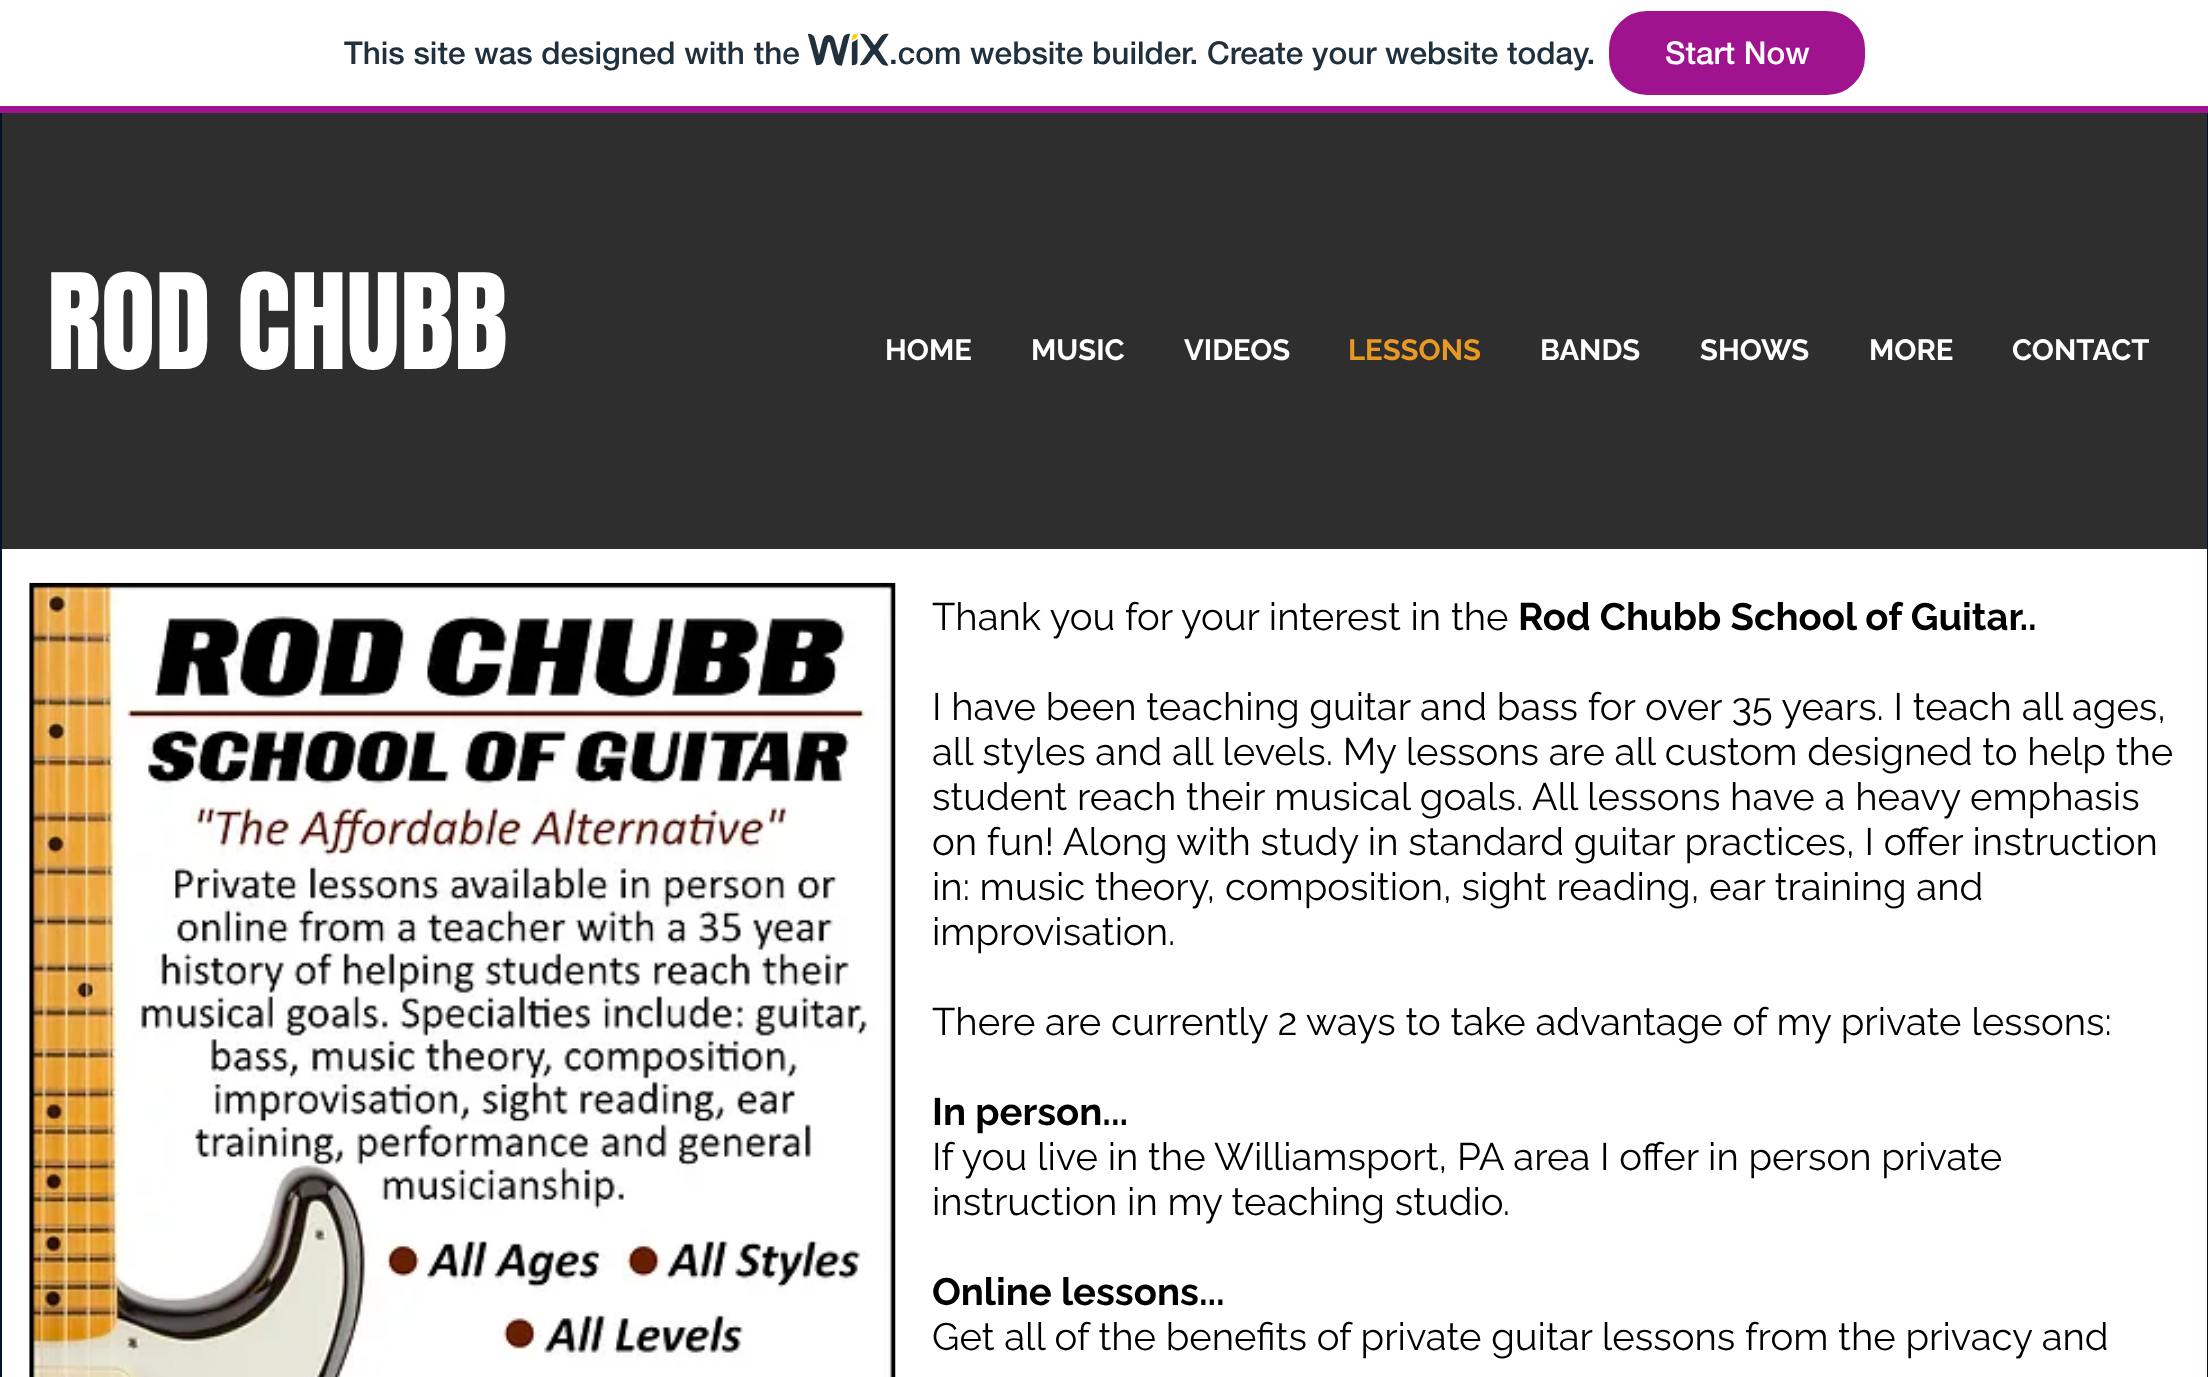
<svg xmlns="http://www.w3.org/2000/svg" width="2208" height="1377">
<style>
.a{font:500 31.5px 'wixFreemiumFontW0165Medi';fill:#20303c}
.b{font:500 31.5px 'wixFreemiumFontW0165Medi';fill:#fff}
.c{font:112.5px Anton;fill:#fff}
.d{font:bold 29.25px Raleway;fill:#fff}
.e{font:bold 29.25px Raleway;fill:#e89923}
.f{font:38.25px Raleway;fill:#000}
.g{font:bold 38.25px Raleway;fill:#000}
</style>
<rect width="100%" height="100%" fill="#fff"/>
<path fill="#a0138e" d="M0 106h2208v7H0z"/>
<image href="1.png" x="808" y="33" width="81" height="33"/>
<rect fill="#a0138e" stroke="#a0138e" stroke-width="2" x="1610" y="12" width="254" height="82" rx="37"/>
<path fill="#041324" d="M0 113h2208v1264H0z"/>
<path fill="#2f2e2e" d="M2 113h2205v436H2z"/>
<path fill="#fff" d="M2 549h2205v828H2z"/>
<image href="2.png" x="29" y="582" width="867" height="795"/>
<text class="a" x="344" y="64">This site was designed with the</text>
<text class="a" x="889" y="64">.com website builder. Create your website today.</text>
<text class="b" x="1665" y="64">Start Now</text>
<text class="c" x="47" y="369">ROD CHUBB</text>
<text class="d" x="885" y="360">HOME</text>
<text class="d" x="1031" y="360">MUSIC</text>
<text class="d" x="1184" y="360">VIDEOS</text>
<text class="e" x="1348" y="360">LESSONS</text>
<text class="d" x="1540" y="360">BANDS</text>
<text class="d" x="1700" y="360">SHOWS</text>
<text class="d" x="1869" y="360">MORE</text>
<text class="d" x="2012" y="360">CONTACT</text>
<text class="f" x="932" y="630">Thank you for your interest in the</text>
<text class="g" x="1518" y="630">Rod Chubb School of Guitar..</text>
<text class="f" x="932" y="720">I have been teaching guitar and bass for over 35 years. I teach all ages,</text>
<text class="f" x="932" y="765">all styles and all levels. My lessons are all custom designed to help the</text>
<text class="f" x="932" y="810">student reach their musical goals. All lessons have a heavy emphasis</text>
<text class="f" x="932" y="855">on fun! Along with study in standard guitar practices, I offer instruction</text>
<text class="f" x="932" y="900">in: music theory, composition, sight reading, ear training and</text>
<text class="f" x="932" y="945">improvisation.</text>
<text class="f" x="932" y="1035">There are currently 2 ways to take advantage of my private lessons:</text>
<text class="g" x="932" y="1125">In person...</text>
<text class="f" x="932" y="1170">If you live in the Williamsport, PA area I offer in person private</text>
<text class="f" x="932" y="1215">instruction in my teaching studio.</text>
<text class="g" x="932" y="1305">Online lessons...</text>
<text class="f" x="932" y="1350">Get all of the benefits of private guitar lessons from the privacy and</text>
</svg>
